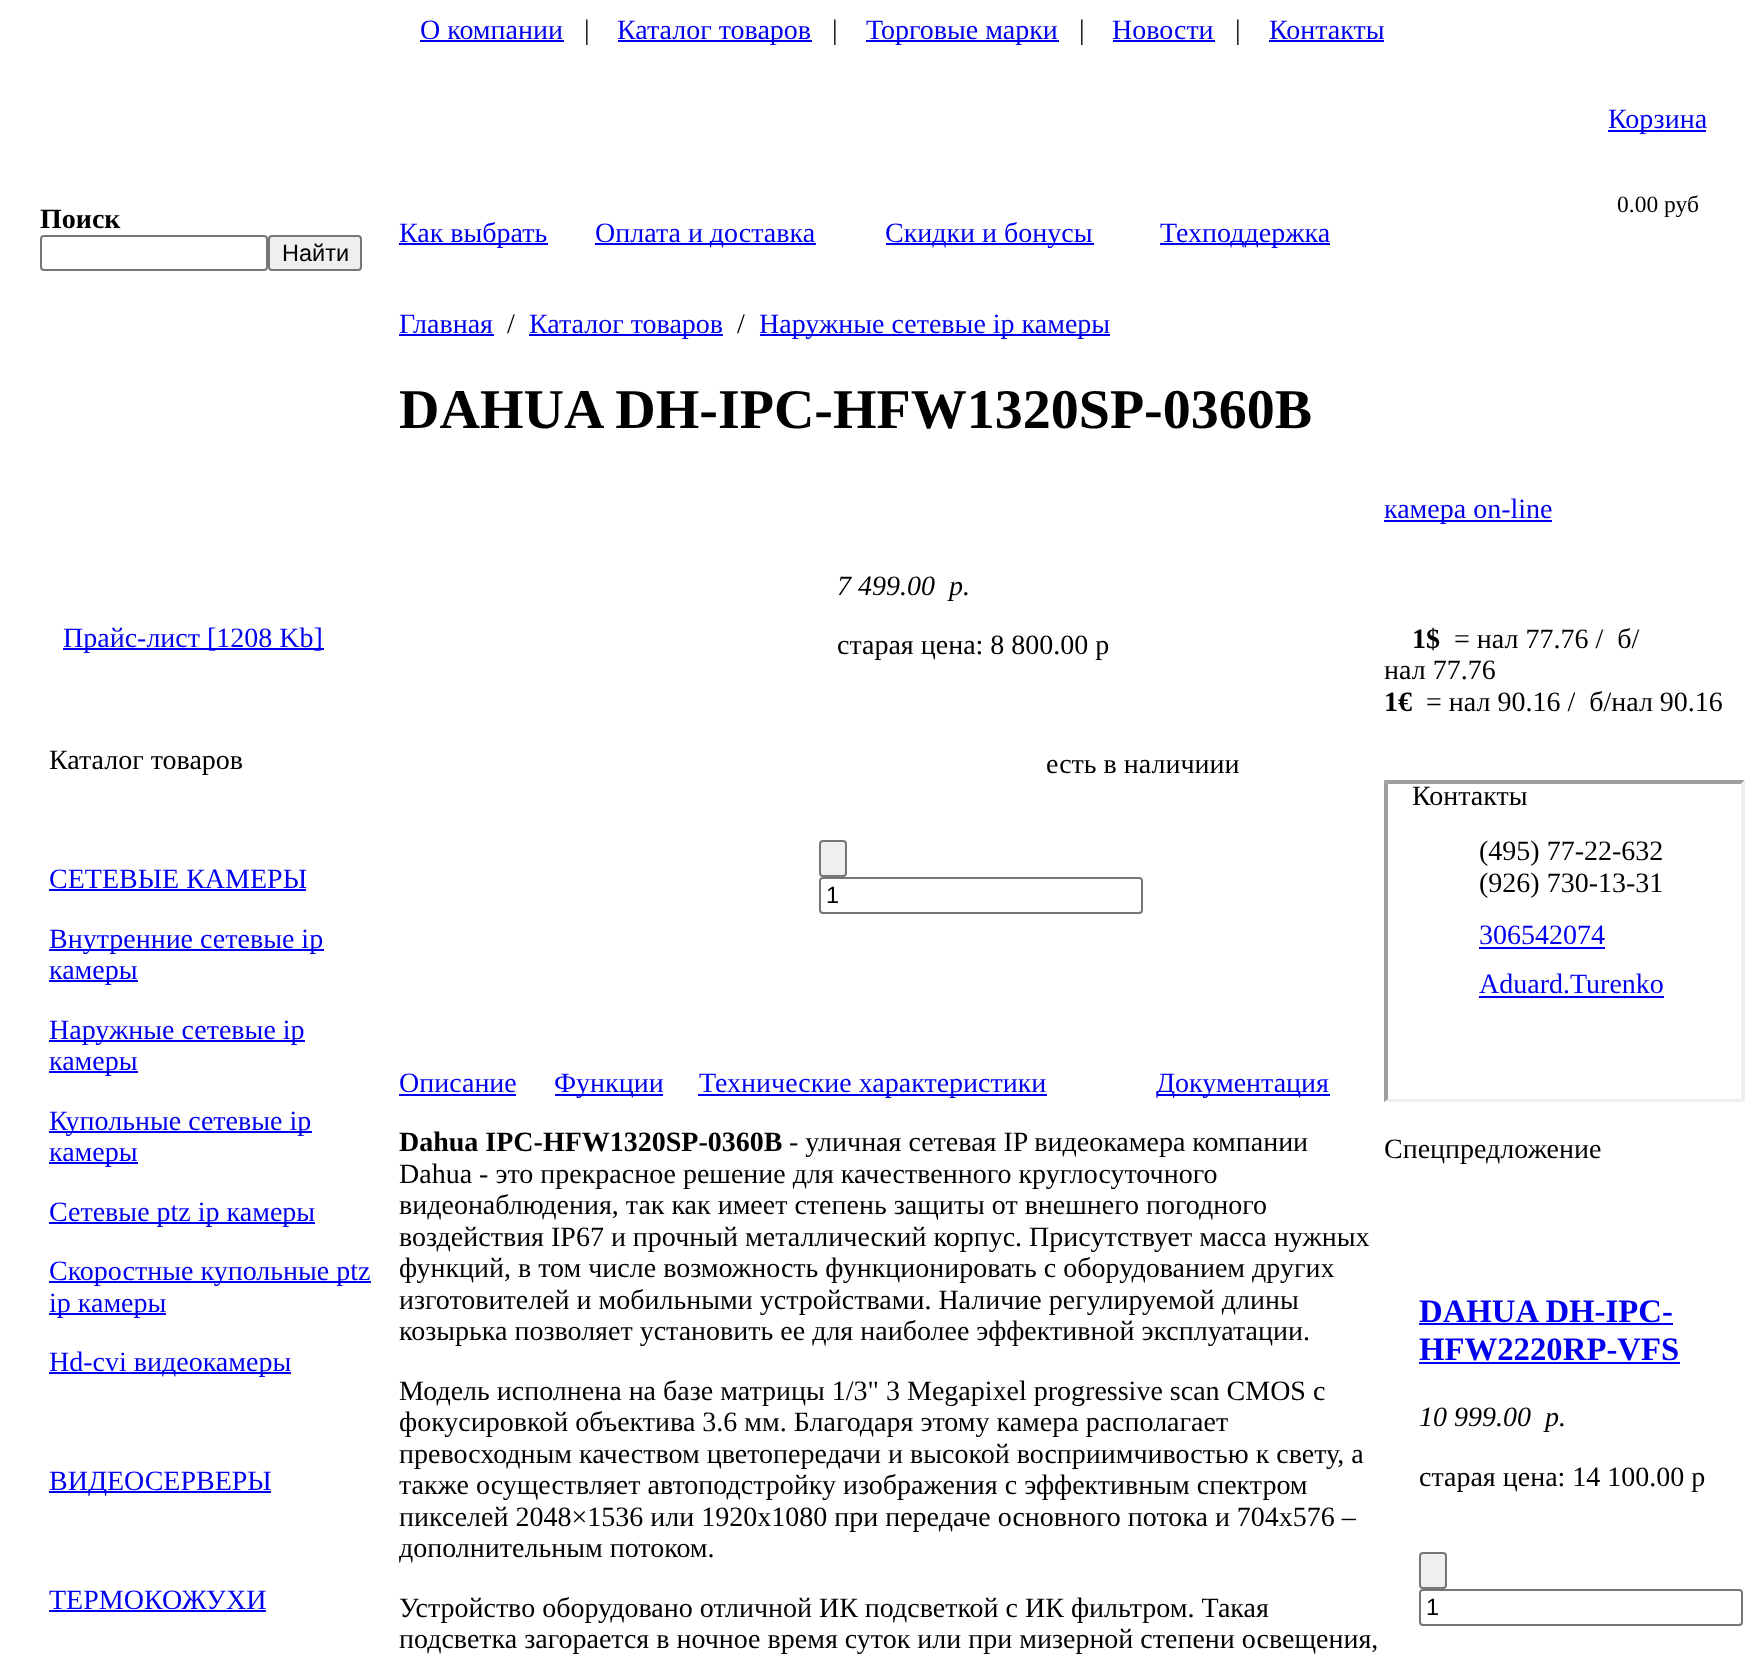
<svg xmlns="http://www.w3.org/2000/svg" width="1758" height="1664">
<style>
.a{font:28px Liberation Serif;fill:#00e}
.b{font:28px Liberation Serif;fill:#000}
.c{font:23.5px Liberation Serif;fill:#000}
.d{font:bold 28px Liberation Serif;fill:#000}
.e{font:23.5px Liberation Sans;fill:#000}
.f{font:bold 56px Liberation Serif;fill:#000}
.g{font:italic 28px Liberation Serif;fill:#000}
.h{font:bold 32.75px Liberation Serif;fill:#00e}
</style>
<rect width="100%" height="100%" fill="#fff"/>
<path fill="#00e" d="M420 40h144v2H420z"/>
<path fill="#00e" d="M618 40h194v2H618z"/>
<path fill="#00e" d="M866 40h193v2H866z"/>
<path fill="#00e" d="M1113 40h102v2H1113z"/>
<path fill="#00e" d="M1269 40h115v2H1269z"/>
<path fill="#00e" d="M399 243h149v2H399z"/>
<path fill="#00e" d="M595 243h221v2H595z"/>
<path fill="#00e" d="M886 243h208v2H886z"/>
<path fill="#00e" d="M1160 243h170v2H1160z"/>
<path fill="#00e" d="M1608 130h98v2H1608z"/>
<rect fill="none" stroke="#767676" stroke-width="2" x="41" y="236" width="226" height="34" rx="3"/>
<rect fill="#efefef" stroke="#767676" stroke-width="2" x="269" y="236" width="92" height="34" rx="3"/>
<path fill="#00e" d="M63 648h261v2H63z"/>
<path fill="#00e" d="M49 889h257v2H49z"/>
<path fill="#00e" d="M49 949h275v2H49z"/>
<path fill="#00e" d="M49 980h89v2H49z"/>
<path fill="#00e" d="M49 1040h256v2H49z"/>
<path fill="#00e" d="M49 1071h89v2H49z"/>
<path fill="#00e" d="M49 1131h263v2H49z"/>
<path fill="#00e" d="M49 1162h89v2H49z"/>
<path fill="#00e" d="M49 1222h266v2H49z"/>
<path fill="#00e" d="M49 1281h322v2H49z"/>
<path fill="#00e" d="M49 1313h117v2H49z"/>
<path fill="#00e" d="M49 1372h242v2H49z"/>
<path fill="#00e" d="M49 1491h222v2H49z"/>
<path fill="#00e" d="M49 1610h217v2H49z"/>
<path fill="#00e" d="M399 334h95v2H399z"/>
<path fill="#00e" d="M529 334h194v2H529z"/>
<path fill="#00e" d="M760 334h350v2H760z"/>
<rect fill="#efefef" stroke="#767676" stroke-width="2" x="820" y="841" width="26" height="35" rx="3"/>
<rect fill="none" stroke="#767676" stroke-width="2" x="820" y="878" width="322" height="35" rx="3"/>
<path fill="#00e" d="M399 1094h117v2H399z"/>
<path fill="#00e" d="M555 1094h108v2H555z"/>
<path fill="#00e" d="M698 1094h349v2H698z"/>
<path fill="#00e" d="M1157 1094h173v2H1157z"/>
<path fill="#00e" d="M1384 520h168v2H1384z"/>
<path fill="#9f9f9f" d="M1384 780h361l-4 4h-353z"/>
<path fill="#efefef" d="M1745 780v322l-4-3v-315z"/>
<path fill="#efefef" d="M1745 1102h-361l4-3h353z"/>
<path fill="#9f9f9f" d="M1384 1102v-322l4 4v315z"/>
<path fill="#00e" d="M1479 947h126v2H1479z"/>
<path fill="#00e" d="M1479 996h185v2H1479z"/>
<path fill="#00e" d="M1419 1323h254v2H1419z"/>
<path fill="#00e" d="M1419 1362h261v2H1419z"/>
<rect fill="#efefef" stroke="#767676" stroke-width="2" x="1420" y="1553" width="26" height="35" rx="3"/>
<rect fill="none" stroke="#767676" stroke-width="2" x="1420" y="1590" width="322" height="35" rx="3"/>
<text class="a" x="420" y="39">О компании</text>
<text class="b" x="584" y="39">|</text>
<text class="a" x="617" y="39">Каталог товаров</text>
<text class="b" x="832" y="39">|</text>
<text class="a" x="866" y="39">Торговые марки</text>
<text class="b" x="1079" y="39">|</text>
<text class="a" x="1112" y="39">Новости</text>
<text class="b" x="1235" y="39">|</text>
<text class="a" x="1269" y="39">Контакты</text>
<text class="a" x="399" y="242">Как выбрать</text>
<text class="a" x="595" y="242">Оплата и доставка</text>
<text class="a" x="885" y="242">Скидки и бонусы</text>
<text class="a" x="1160" y="242">Техподдержка</text>
<text class="a" x="1608" y="128">Корзина</text>
<text class="c" x="1617" y="212">0.00 руб</text>
<text class="d" x="40" y="228">Поиск</text>
<text class="e" x="282" y="261">Найти</text>
<text class="a" x="63" y="647">Прайс-лист [1208 Kb]</text>
<text class="b" x="49" y="769">Каталог товаров</text>
<text class="a" x="49" y="888">СЕТЕВЫЕ КАМЕРЫ</text>
<text class="a" x="49" y="948">Внутренние сетевые ip</text>
<text class="a" x="49" y="979">камеры</text>
<text class="a" x="49" y="1039">Наружные сетевые ip</text>
<text class="a" x="49" y="1070">камеры</text>
<text class="a" x="49" y="1130">Купольные сетевые ip</text>
<text class="a" x="49" y="1161">камеры</text>
<text class="a" x="49" y="1221">Сетевые ptz ip камеры</text>
<text class="a" x="49" y="1280">Скоростные купольные ptz</text>
<text class="a" x="49" y="1312">ip камеры</text>
<text class="a" x="49" y="1371">Hd-cvi видеокамеры</text>
<text class="a" x="49" y="1490">ВИДЕОСЕРВЕРЫ</text>
<text class="a" x="49" y="1609">ТЕРМОКОЖУХИ</text>
<text class="a" x="399" y="333">Главная</text>
<text class="b" x="507" y="333">/</text>
<text class="a" x="529" y="333">Каталог товаров</text>
<text class="b" x="737" y="333">/</text>
<text class="a" x="759" y="333">Наружные сетевые ip камеры</text>
<text class="f" x="399" y="428">DAHUA DH-IPC-HFW1320SP-0360B</text>
<text class="g" xml:space="preserve" x="837" y="595">7 499.00  p.</text>
<text class="b" x="837" y="654">старая цена: 8 800.00 р</text>
<text class="b" x="1046" y="773">есть в наличиии</text>
<text class="e" x="826" y="903">1</text>
<text class="a" x="399" y="1092">Описание</text>
<text class="a" x="554" y="1092">Функции</text>
<text class="a" x="699" y="1092">Технические характеристики</text>
<text class="a" x="1156" y="1092">Документация</text>
<text class="d" x="399" y="1151">Dahua IPC-HFW1320SP-0360B</text>
<text class="b" x="789" y="1151">- уличная сетевая IP видеокамера компании</text>
<text class="b" x="399" y="1183">Dahua - это прекрасное решение для качественного круглосуточного</text>
<text class="b" x="399" y="1214">видеонаблюдения, так как имеет степень защиты от внешнего погодного</text>
<text class="b" x="399" y="1246">воздействия IP67 и прочный металлический корпус. Присутствует масса нужных</text>
<text class="b" x="399" y="1277">функций, в том числе возможность функционировать с оборудованием других</text>
<text class="b" x="399" y="1309">изготовителей и мобильными устройствами. Наличие регулируемой длины</text>
<text class="b" x="399" y="1340">козырька позволяет установить ее для наиболее эффективной эксплуатации.</text>
<text class="b" x="399" y="1400">Модель исполнена на базе матрицы 1/3" 3 Megapixel progressive scan CMOS с</text>
<text class="b" x="399" y="1431">фокусировкой объектива 3.6 мм. Благодаря этому камера располагает</text>
<text class="b" x="399" y="1463">превосходным качеством цветопередачи и высокой восприимчивостью к свету, а</text>
<text class="b" x="399" y="1494">также осуществляет автоподстройку изображения с эффективным спектром</text>
<text class="b" x="399" y="1526">пикселей 2048×1536 или 1920x1080 при передаче основного потока и 704x576 –</text>
<text class="b" x="399" y="1557">дополнительным потоком.</text>
<text class="b" x="399" y="1617">Устройство оборудовано отличной ИК подсветкой с ИК фильтром. Такая</text>
<text class="b" x="399" y="1648">подсветка загорается в ночное время суток или при мизерной степени освещения,</text>
<text class="a" x="1384" y="518">камера on-line</text>
<text class="d" x="1412" y="648">1$</text>
<text class="b" xml:space="preserve" x="1454" y="648">= нал 77.76 /  б/</text>
<text class="b" x="1384" y="679">нал 77.76</text>
<text class="d" x="1384" y="711">1€</text>
<text class="b" xml:space="preserve" x="1426" y="711">= нал 90.16 /  б/нал 90.16</text>
<text class="b" x="1412" y="805">Контакты</text>
<text class="b" x="1479" y="860">(495) 77-22-632</text>
<text class="b" x="1479" y="892">(926) 730-13-31</text>
<text class="a" x="1479" y="944">306542074</text>
<text class="a" x="1479" y="993">Aduard.Turenko</text>
<text class="b" x="1384" y="1158">Спецпредложение</text>
<text class="h" x="1419" y="1322">DAHUA DH-IPC-</text>
<text class="h" x="1419" y="1360">HFW2220RP-VFS</text>
<text class="g" xml:space="preserve" x="1419" y="1426">10 999.00  p.</text>
<text class="b" x="1419" y="1486">старая цена: 14 100.00 р</text>
<text class="e" x="1426" y="1615">1</text>
</svg>
